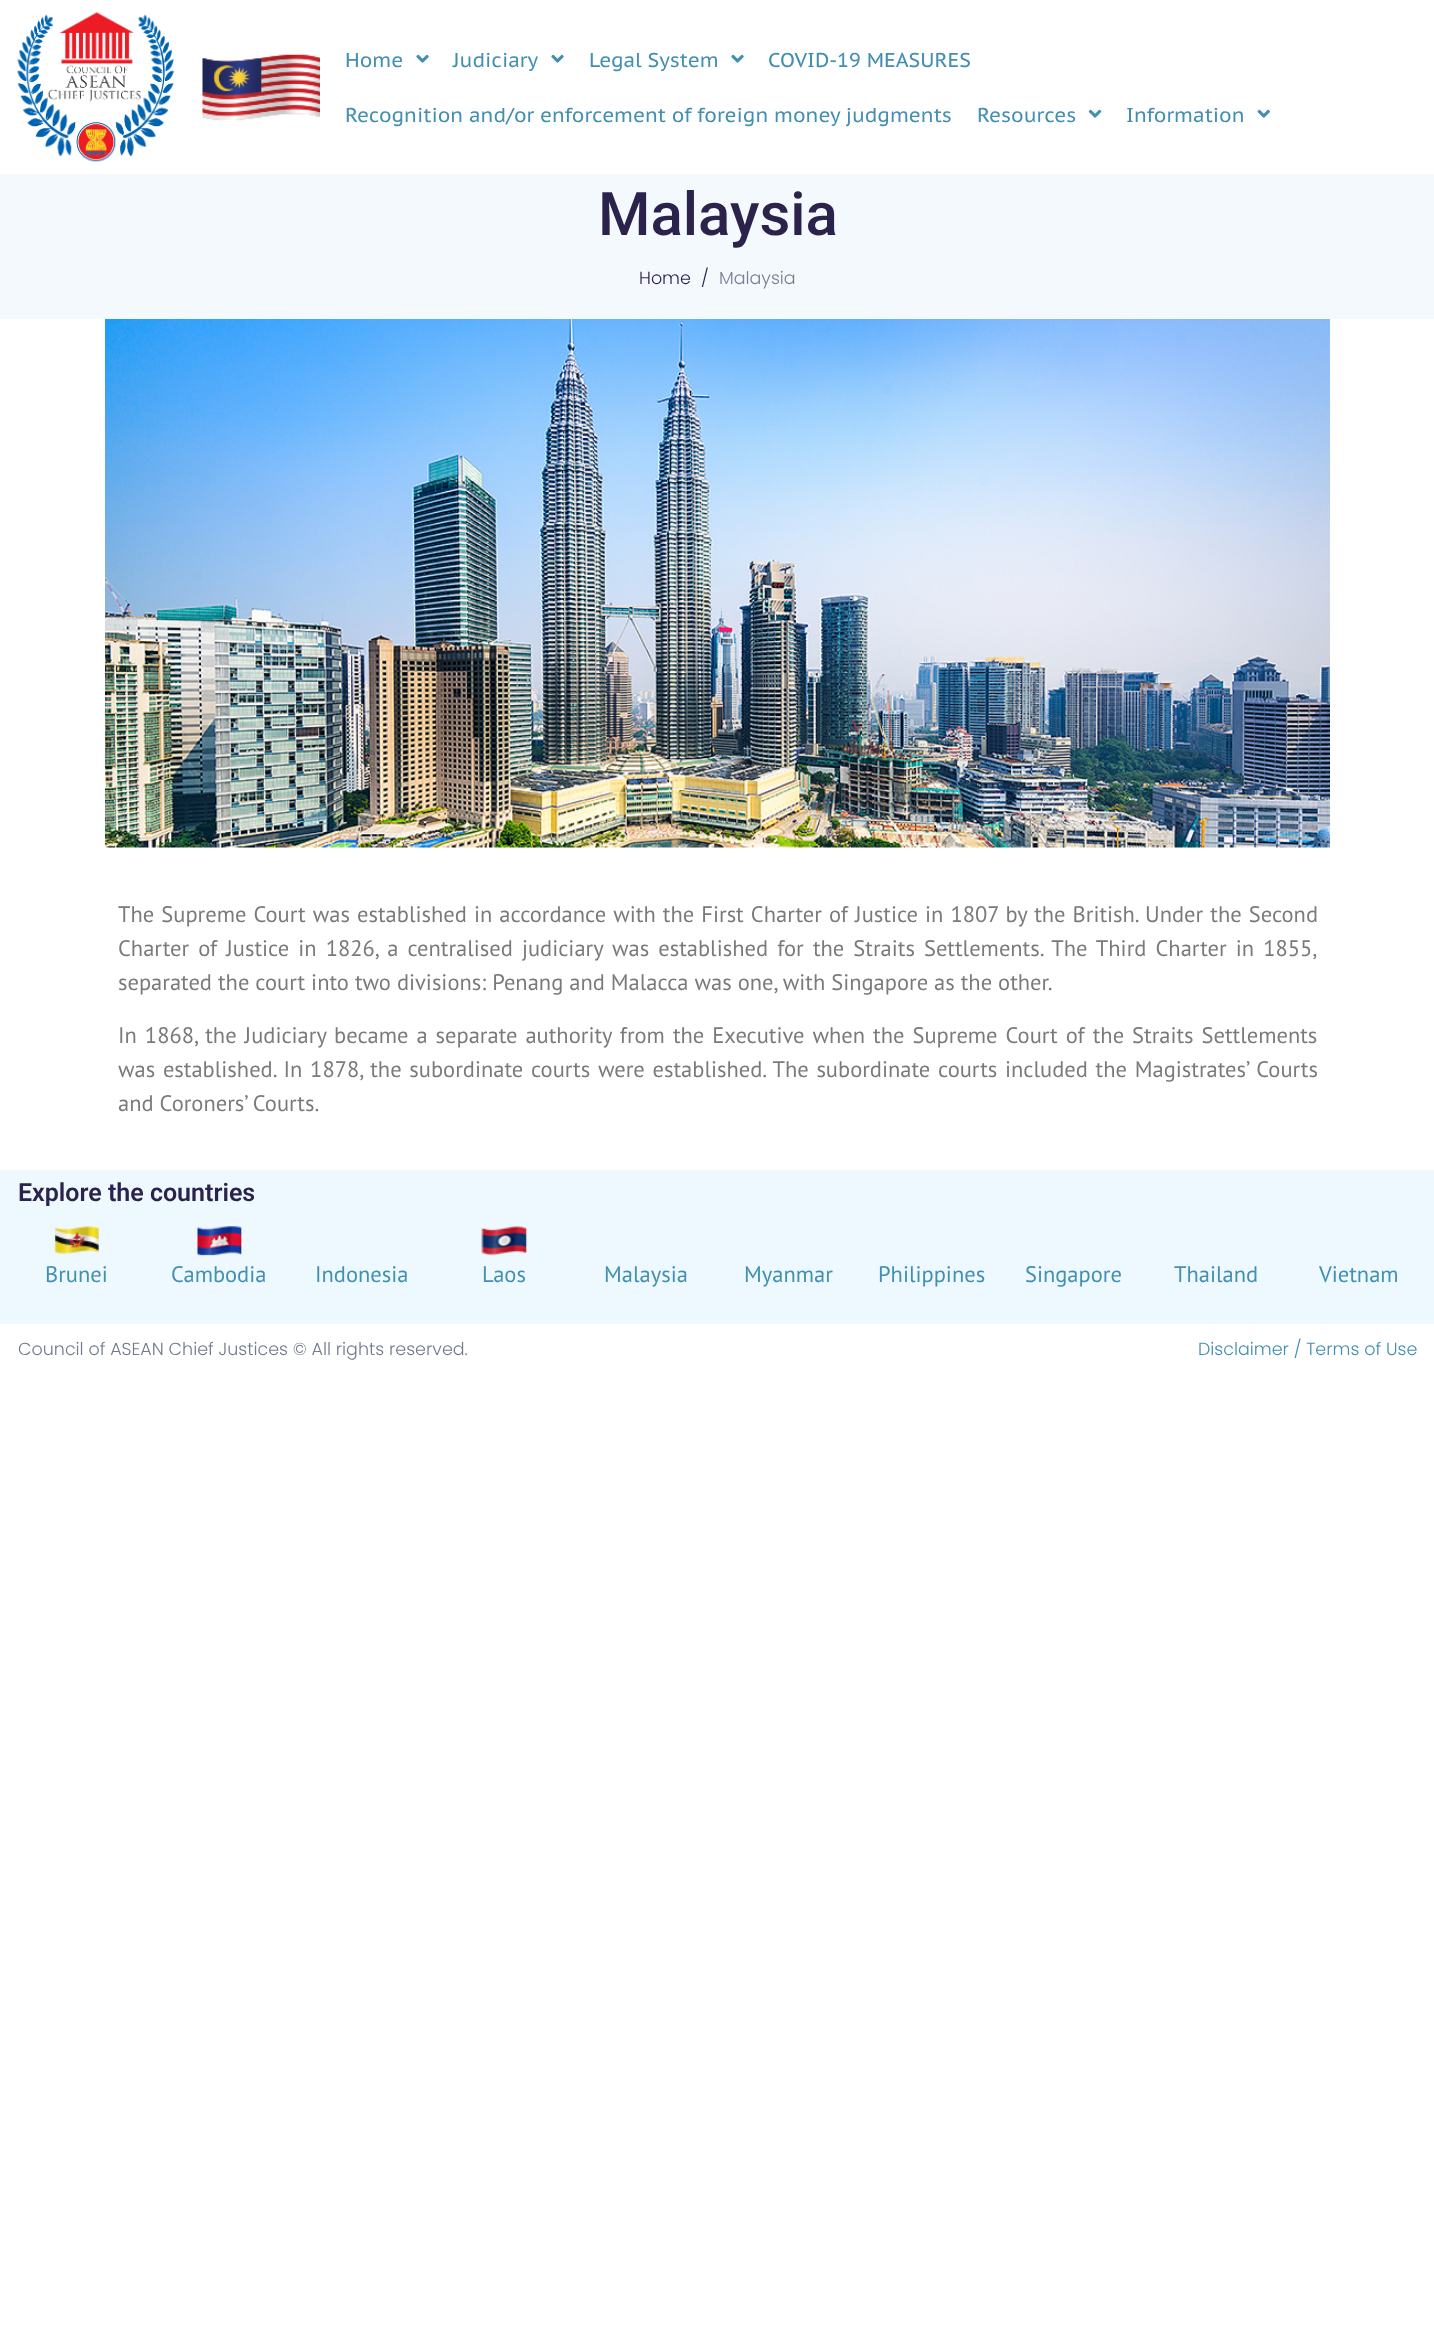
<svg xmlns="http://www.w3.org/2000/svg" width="1434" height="2351">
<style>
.a{font:20px PT Sans Caption;fill:#438fb1}
.b{font:500 60px Roboto;fill:#2c234d}
.c{font:300 17.5px Poppins;fill:#2c234d}
.d{font:300 17.5px Poppins;fill:#7e7b95}
.e{font:22.5px PT Sans;fill:#7a7a7a}
.f{font:600 25px Roboto;fill:#2c234d}
.g{font:22.5px PT Sans;fill:#438fb1}
.h{font:300 17.5px Poppins;fill:#707b8e}
.i{font:300 17.5px Poppins;fill:#438fb1}
</style>
<rect width="100%" height="100%" fill="#fff"/>
<path fill="#f3f8fc" d="M0 174h1434v1H0z"/>
<image href="1.png" x="17" y="12" width="157" height="150"/>
<image href="2.png" x="202" y="54" width="118" height="67"/>
<image href="3.png" x="416" y="54" width="13" height="9"/>
<image href="3.png" x="551" y="54" width="13" height="9"/>
<image href="3.png" x="731" y="54" width="13" height="9"/>
<image href="4.png" x="1088" y="109" width="14" height="9"/>
<image href="5.png" x="1257" y="109" width="13" height="9"/>
<path fill="#f3f9fc" d="M0 175h1434v144H0z"/>
<image href="6.png" x="105" y="319" width="1225" height="529"/>
<path fill="#edf9ff" d="M0 1170h1434v154H0z"/>
<image href="7.png" x="54" y="1226" width="45" height="28"/>
<image href="8.png" x="197" y="1226" width="45" height="30"/>
<image href="9.png" x="481" y="1226" width="46" height="30"/>
<text class="a" x="345" y="67">Home</text>
<text class="a" x="453" y="67">Judiciary</text>
<text class="a" x="589" y="67">Legal System</text>
<text class="a" x="768" y="67">COVID-19 MEASURES</text>
<text class="a" x="345" y="122">Recognition and/or enforcement of foreign money judgments</text>
<text class="a" x="977" y="122">Resources</text>
<text class="a" x="1126" y="122">Information</text>
<text class="b" x="598" y="235">Malaysia</text>
<text class="c" x="639" y="284">Home</text>
<text class="c" x="701" y="284">/</text>
<text class="d" x="719" y="284">Malaysia</text>
<text class="e" x="118" y="922" word-spacing="1.1">The Supreme Court was established in accordance with the First Charter of Justice in 1807 by the British. Under the Second</text>
<text class="e" x="118" y="956" word-spacing="3.1">Charter of Justice in 1826, a centralised judiciary was established for the Straits Settlements. The Third Charter in 1855,</text>
<text class="e" x="118" y="990">separated the court into two divisions: Penang and Malacca was one, with Singapore as the other.</text>
<text class="e" x="118" y="1043" word-spacing="2">In 1868, the Judiciary became a separate authority from the Executive when the Supreme Court of the Straits Settlements</text>
<text class="e" x="118" y="1077" word-spacing="1.75">was established. In 1878, the subordinate courts were established. The subordinate courts included the Magistrates’ Courts</text>
<text class="e" x="118" y="1111">and Coroners’ Courts.</text>
<text class="f" x="18" y="1201">Explore the countries</text>
<text class="g" x="45" y="1282">Brunei</text>
<text class="g" x="171" y="1282">Cambodia</text>
<text class="g" x="315" y="1282">Indonesia</text>
<text class="g" x="482" y="1282">Laos</text>
<text class="g" x="604" y="1282">Malaysia</text>
<text class="g" x="744" y="1282">Myanmar</text>
<text class="g" x="878" y="1282">Philippines</text>
<text class="g" x="1025" y="1282">Singapore</text>
<text class="g" x="1174" y="1282">Thailand</text>
<text class="g" x="1319" y="1282">Vietnam</text>
<text class="h" x="18" y="1355">Council of ASEAN Chief Justices © All rights reserved.</text>
<text class="i" x="1198" y="1355">Disclaimer / Terms of Use</text>
</svg>
